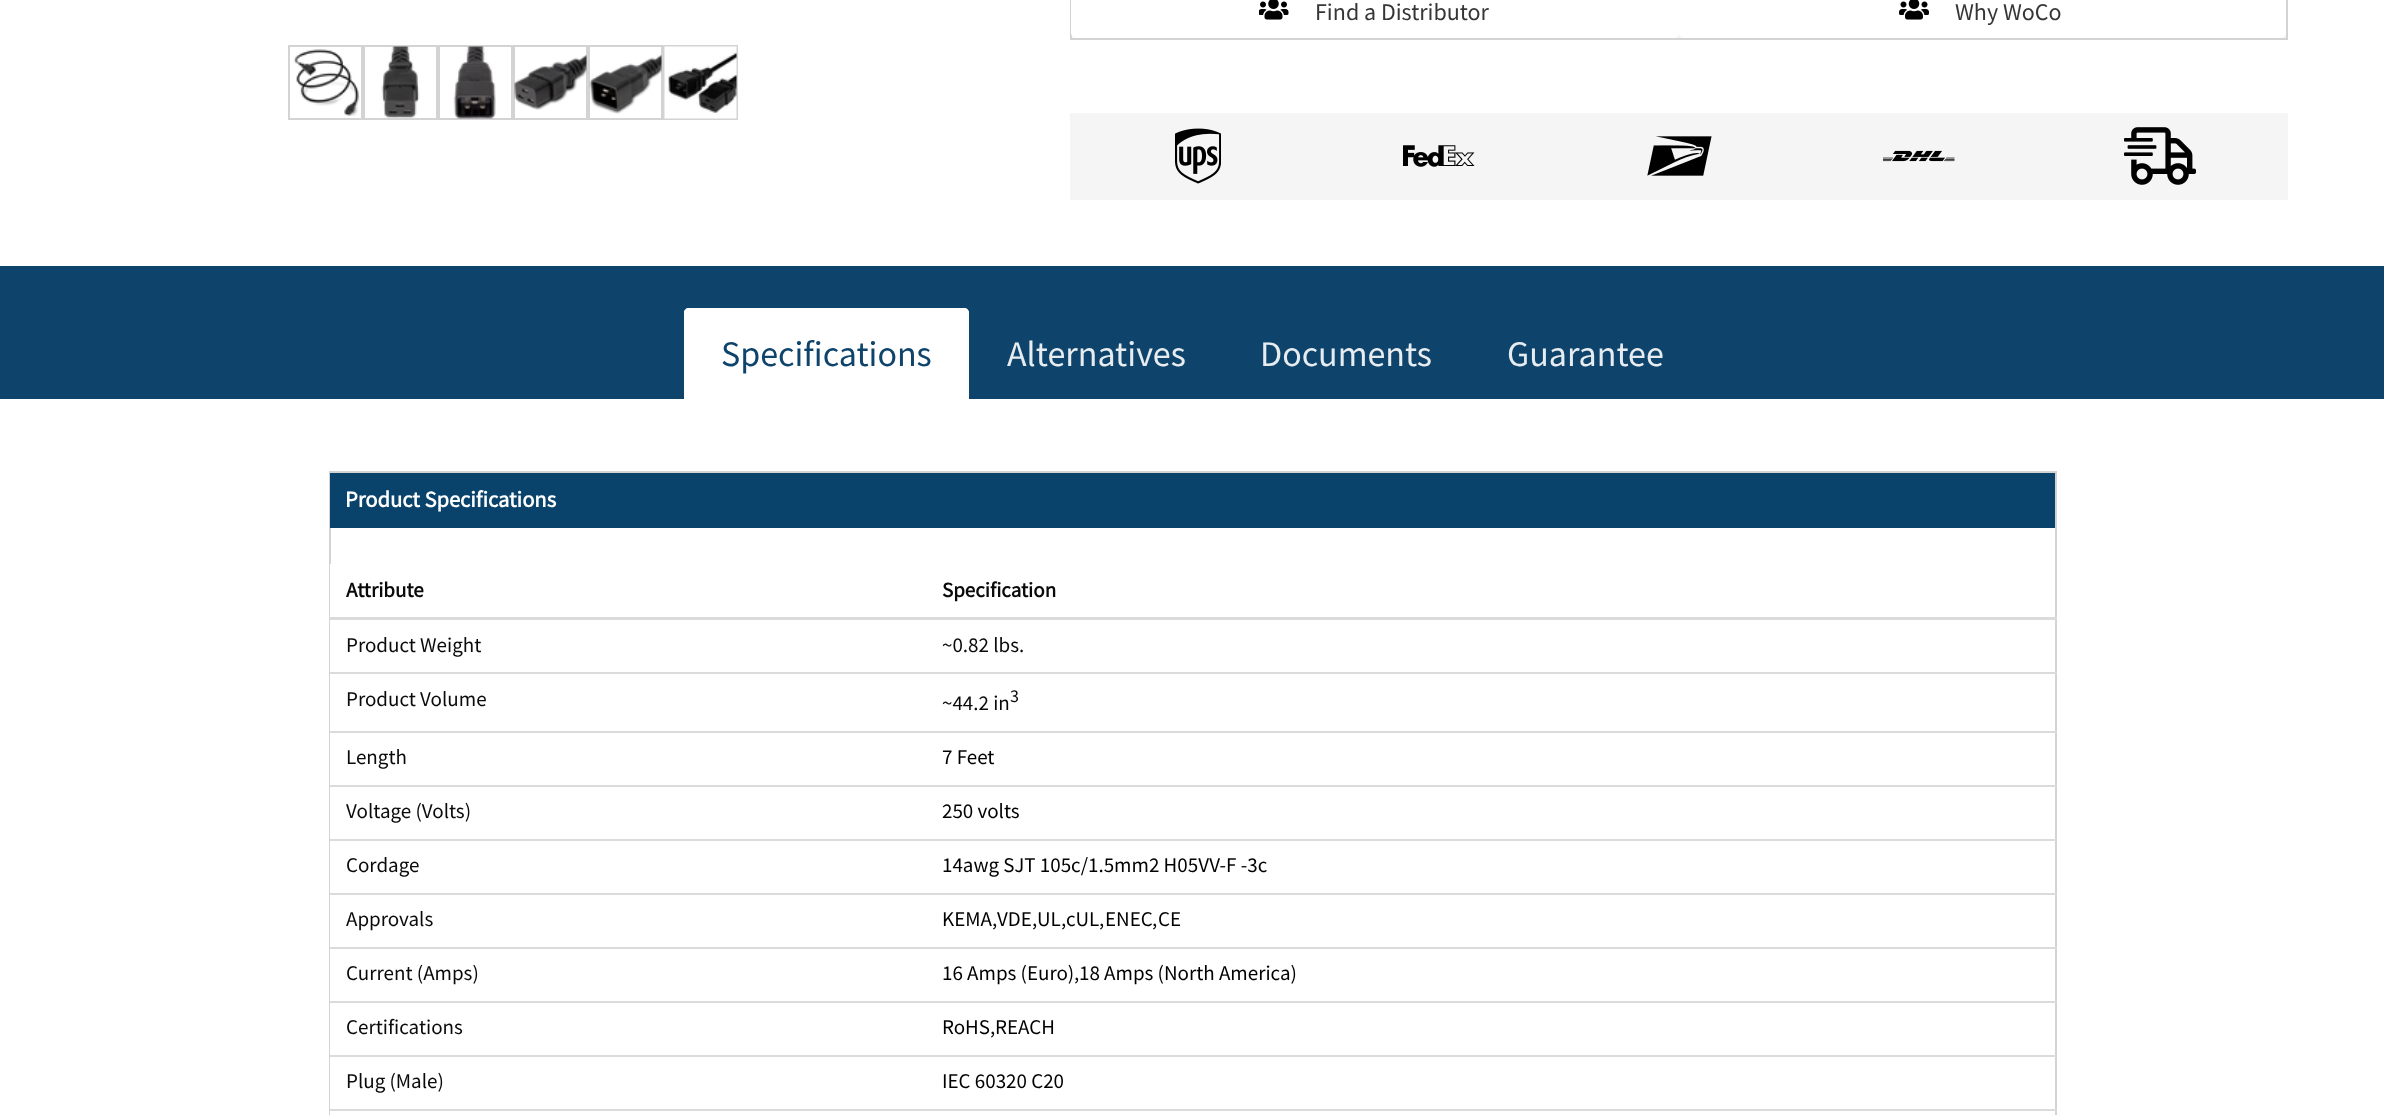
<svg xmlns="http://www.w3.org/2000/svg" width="2384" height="1115">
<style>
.a{font:24px Source Sans Pro;fill:#363636}
.b{font:36px Source Sans Pro;fill:#0e446b}
.c{font:36px Source Sans Pro;fill:#e7ecf0}
.d{font:bold 22.5px Source Sans Pro;fill:#fff}
.e{font:bold 21px Source Sans Pro;fill:#0a0a0a}
.f{font:21px Source Sans Pro;fill:#0a0a0a}
.g{font:18px Source Sans Pro;fill:#0a0a0a}
.h{font:21px Source Sans Pro;fill:#000}
</style>
<rect width="100%" height="100%" fill="#fff"/>
<path fill="#f4f4f4" d="M1072 33h1214v5H1072z"/>
<path fill="#d3d3d3" d="M2286 0h2v39H2286z"/>
<path fill="#d3d3d3" d="M1070 38h1218v2H1070z"/>
<path fill="#d3d3d3" d="M1070 0h2v39H1070z"/>
<rect fill="#fff" x="1071" y="-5" width="608" height="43" rx="5"/>
<image href="1.png" x="1259" y="0" width="30" height="20"/>
<rect fill="#fff" x="1679" y="-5" width="607" height="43" rx="5"/>
<image href="2.png" x="1899" y="0" width="30" height="20"/>
<path fill="#f5f5f5" d="M1070 113h1218v87H1070z"/>
<image href="3.png" x="1175" y="128" width="46" height="56"/>
<image href="4.png" x="1403" y="145" width="72" height="22"/>
<image href="5.png" x="1647" y="136" width="65" height="40"/>
<image href="6.png" x="1883" y="150" width="72" height="12"/>
<image href="7.png" x="2124" y="127" width="72" height="58"/>
<path fill="none" stroke="#d3d3d3" stroke-width="2" d="M289 46h73v73H289z"/>
<image href="8.png" x="293" y="49" width="67" height="67"/>
<path fill="none" stroke="#d3d3d3" stroke-width="2" d="M364 46h73v73H364z"/>
<image href="9.png" x="381" y="46" width="39" height="72"/>
<path fill="none" stroke="#d3d3d3" stroke-width="2" d="M439 46h73v73H439z"/>
<image href="10.png" x="453" y="46" width="43" height="73"/>
<path fill="none" stroke="#d3d3d3" stroke-width="2" d="M514 46h73v73H514z"/>
<image href="11.png" x="514" y="55" width="73" height="55"/>
<path fill="none" stroke="#d3d3d3" stroke-width="2" d="M589 46h73v73H589z"/>
<image href="12.png" x="589" y="55" width="73" height="59"/>
<path fill="none" stroke="#d3d3d3" stroke-width="2" d="M664 46h73v73H664z"/>
<image href="13.png" x="664" y="46" width="73" height="73"/>
<path fill="#0e446b" d="M0 266h2384v133H0z"/>
<path fill="#fff" d="M689 308h275c3 0 5 2 5 5v86h-285v-86c0-3 2-5 5-5z"/>
<path fill="#fff" d="M688 308l-2 1v1l2-1h276l3 1v-1l-3-1z"/>
<path fill="#fff" d="M969 400v-88l-2-3v1l1 2v87z"/>
<path fill="#fff" d="M684 312v88l2-2v-86v-2v-1c-1 1-2 2-2 3z"/>
<path fill="none" stroke="#d3d3d3" stroke-width="2" d="M330 472h1726v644H330z"/>
<path fill="#09436b" d="M330 473h1725v55H330z"/>
<path fill="#fff" d="M330 564h1v551H330z"/>
<path fill="#dbdbdb" d="M329 617h1728v3H329z"/>
<path fill="#dbdbdb" d="M330 672h1727v2H330z"/>
<path fill="#dbdbdb" d="M330 731h1727v2H330z"/>
<path fill="#dbdbdb" d="M330 785h1727v2H330z"/>
<path fill="#dbdbdb" d="M330 839h1727v2H330z"/>
<path fill="#dbdbdb" d="M330 893h1727v2H330z"/>
<path fill="#dbdbdb" d="M330 947h1727v2H330z"/>
<path fill="#dbdbdb" d="M330 1001h1727v2H330z"/>
<path fill="#dbdbdb" d="M330 1055h1727v2H330z"/>
<path fill="#dbdbdb" d="M330 1109h1727v2H330z"/>
<text class="a" x="1315" y="20">Find a Distributor</text>
<text class="a" x="1955" y="20">Why WoCo</text>
<text class="b" x="721" y="366">Specifications</text>
<text class="c" x="1007" y="366">Alternatives</text>
<text class="c" x="1260" y="366">Documents</text>
<text class="c" x="1507" y="366">Guarantee</text>
<text class="d" x="345" y="507">Product Specifications</text>
<text class="e" x="346" y="597">Attribute</text>
<text class="e" x="942" y="597">Specification</text>
<text class="f" x="346" y="652">Product Weight</text>
<text class="f" x="942" y="652">~0.82 lbs.</text>
<text class="f" x="346" y="706">Product Volume</text>
<text class="f" x="942" y="710">~44.2 in</text>
<text class="g" x="1010" y="702">3</text>
<text class="f" x="346" y="764">Length</text>
<text class="h" x="942" y="764">7 Feet</text>
<text class="f" x="346" y="818">Voltage (Volts)</text>
<text class="h" x="942" y="818">250 volts</text>
<text class="f" x="346" y="872">Cordage</text>
<text class="h" x="942" y="872">14awg SJT 105c/1.5mm2 H05VV-F -3c</text>
<text class="f" x="346" y="926">Approvals</text>
<text class="h" x="942" y="926">KEMA</text>
<text class="f" x="992" y="926">,</text>
<text class="h" x="997" y="926">VDE</text>
<text class="f" x="1032" y="926">,</text>
<text class="h" x="1037" y="926">UL</text>
<text class="f" x="1061" y="926">,</text>
<text class="h" x="1066" y="926">cUL</text>
<text class="f" x="1099" y="926">,</text>
<text class="h" x="1105" y="926">ENEC</text>
<text class="f" x="1152" y="926">,</text>
<text class="h" x="1158" y="926">CE</text>
<text class="f" x="346" y="980">Current (Amps)</text>
<text class="h" x="942" y="980">16 Amps (Euro)</text>
<text class="f" x="1074" y="980">,</text>
<text class="h" x="1079" y="980">18 Amps (North America)</text>
<text class="f" x="346" y="1034">Certifications</text>
<text class="h" x="942" y="1034">RoHS</text>
<text class="f" x="990" y="1034">,</text>
<text class="h" x="995" y="1034">REACH</text>
<text class="f" x="346" y="1088">Plug (Male)</text>
<text class="h" x="942" y="1088">IEC 60320 C20</text>
</svg>
